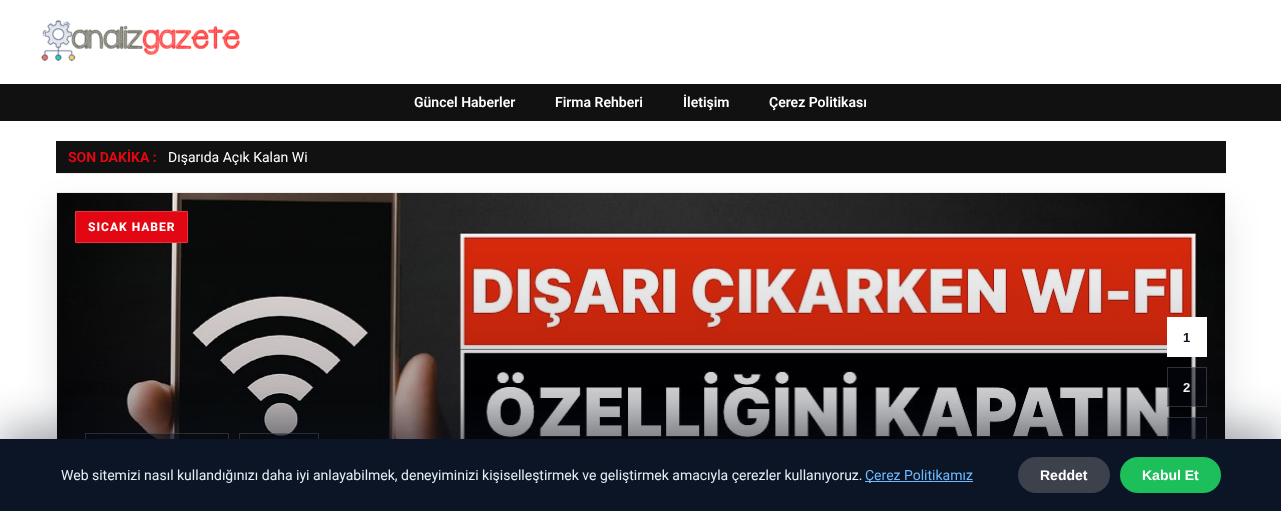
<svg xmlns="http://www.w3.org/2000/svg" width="1281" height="511">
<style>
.a{font:600 14px Roboto;fill:#fff}
.b{font:bold 14px Roboto;fill:#e30613}
.c{font:14px Roboto;fill:#fff}
.d{font:800 12px Roboto;letter-spacing:1px;fill:#fff}
.e{font:bold 13px Liberation Sans;fill:#0b1120}
.f{font:bold 13px Liberation Sans;fill:#f2f2f3}
.g{font:14px Roboto;fill:#e7ecf6}
.h{font:14px Roboto;fill:#6fb9ff}
.i{font:bold 14px Liberation Sans;fill:#fff}
</style>
<rect width="100%" height="100%" fill="#fff"/>
<image href="1.png" x="41" y="20" width="199" height="41"/>
<path fill="#111" d="M0 84h1281v37H0z"/>
<path fill="#ededed" d="M56 173h1170v1H56z"/>
<path fill="#111" d="M56 141h1170v32H56z"/>
<path fill="#1018281f" filter="blur(17.5px)" d="M56 210h1170v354H56z"/>
<path fill="none" stroke="#ececee" d="M56.5 192.5h1169v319H56.5z"/>
<image href="2.png" x="57" y="193" width="1168" height="246"/>
<path fill="#e30613" stroke="#e8333d" d="M75.5 211.5h112v31H75.5z"/>
<path fill="#0507108c" d="M85 433h97v6H85z"/>
<path fill="none" stroke="#ffffff2e" d="M85.5 433.5h143v27H85.5z"/>
<path fill="#0507108c" d="M264 433h55v6H264z"/>
<path fill="none" stroke="#ffffff2e" d="M239.5 433.5h79v27H239.5z"/>
<path fill="#fff" d="M1167 317h40v40H1167z"/>
<path fill="#0507108c" d="M1167 367h40v40H1167z"/>
<path fill="none" stroke="#ffffff2e" d="M1167.5 367.5h39v39H1167.5z"/>
<path fill="#0507108c" d="M1167 417h40v22H1167z"/>
<path fill="none" stroke="#ffffff2e" d="M1167.5 417.5h39v39H1167.5z"/>
<path fill="#0c152259" filter="blur(20px)" d="M0 427h1281v72H0z"/>
<path fill="#0b1526" d="M0 439h1281v72H0z"/>
<path fill="#6fb9ff" d="M865 481h108v1H865z"/>
<rect fill="#3c414b" x="1018" y="457" width="92" height="36" rx="18"/>
<rect fill="#1dbf5b" x="1120" y="457" width="101" height="36" rx="18"/>
<text class="a" x="414" y="107">Güncel Haberler</text>
<text class="a" x="555" y="107">Firma Rehberi</text>
<text class="a" x="683" y="107">İletişim</text>
<text class="a" x="769" y="107">Çerez Politikası</text>
<text class="b" x="68" y="162">SON DAKİKA :</text>
<text class="c" x="168" y="162">Dışarıda Açık Kalan Wi</text>
<text class="d" x="88" y="231">SICAK HABER</text>
<text class="e" x="1183" y="342">1</text>
<text class="f" x="1183" y="392">2</text>
<text class="g" x="61" y="480">Web sitemizi nasıl kullandığınızı daha iyi anlayabilmek, deneyiminizi kişiselleştirmek ve geliştirmek amacıyla çerezler kullanıyoruz.</text>
<text class="h" x="865" y="480">Çerez Politikamız</text>
<text class="i" x="1040" y="480">Reddet</text>
<text class="i" x="1142" y="480">Kabul Et</text>
</svg>
